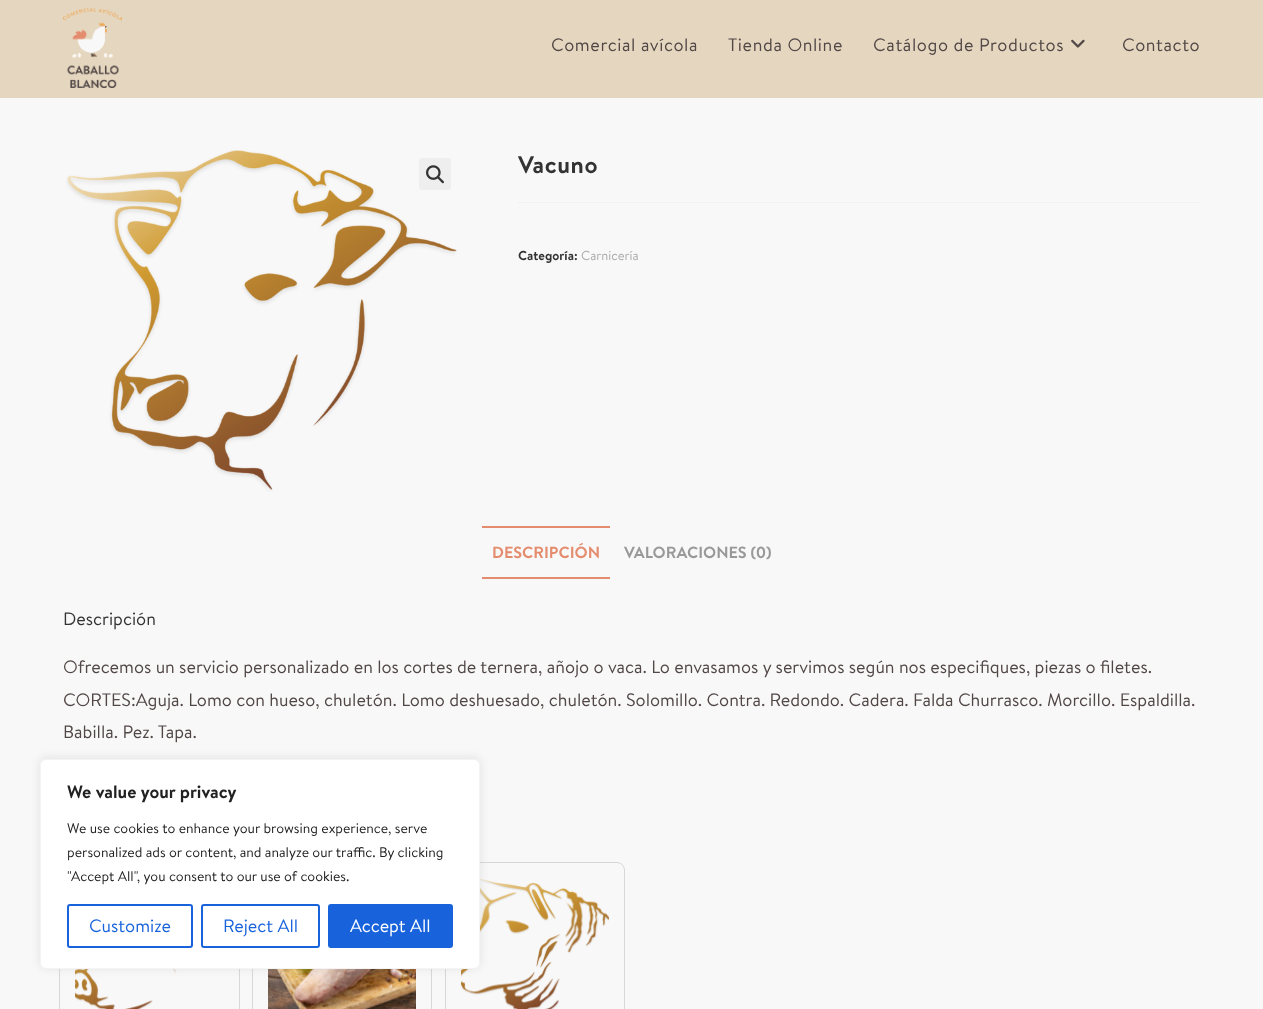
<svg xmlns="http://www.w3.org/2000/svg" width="1263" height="1009">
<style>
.a{font:18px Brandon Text;letter-spacing:0.6px;fill:#514746}
.b{font:bold 24px Brandon Text;letter-spacing:0.6px;fill:#333}
.c{font:bold 13px Brandon Text;fill:#333}
.d{font:13px Brandon Text;fill:#ababab}
.e{font:bold 16.25px Brandon Text;fill:#e48c6e}
.f{font:bold 16.25px Brandon Text;fill:#999}
.g{font:18px Brandon Text;fill:#333}
.h{font:18px Brandon Text;fill:#514746}
.i{font:bold 18px Brandon Text;fill:#212121}
.j{font:14px Brandon Text;fill:#212121}
.k{font:18px Brandon Text;fill:#1863dc}
.l{font:18px Brandon Text;fill:#fff}
</style>
<rect width="100%" height="100%" fill="#f8f8f8"/>
<path fill="#e5d7bf" d="M0 0h1263v98H0z"/>
<image href="1.png" x="63" y="8" width="59" height="80"/>
<image href="2.png" x="1071" y="39" width="14" height="9"/>
<image href="3.png" x="66" y="150" width="391" height="342"/>
<rect fill="#eee" x="419" y="158" width="32" height="32" rx="3"/>
<image href="4.png" x="426" y="165" width="18" height="19"/>
<path fill="#f1f1f1" d="M518 202h682v1H518z"/>
<path fill="#e48c6e" d="M482 526h128v2H482z"/>
<path fill="#e48c6e" d="M482 577h128v2H482z"/>
<path fill="none" stroke="#dad6d6" d="M59.5 862.5h180v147H59.5z"/>
<image href="5.png" x="75" y="969" width="102" height="40"/>
<path fill="none" stroke="#dad6d6" d="M252.5 862.5h179v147H252.5z"/>
<image href="6.png" x="268" y="969" width="148" height="40"/>
<rect fill="none" stroke="#dad6d6" x="445.5" y="862.5" width="179" height="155" rx="7.5"/>
<image href="7.png" x="461" y="878" width="148" height="131"/>
<rect fill="#acabab4d" filter="blur(5px)" x="40" y="758" width="440" height="210" rx="6"/>
<rect fill="#fff" stroke="#f4f4f4" x="40.5" y="759.5" width="439" height="209" rx="5.5"/>
<rect fill="none" stroke="#1863dc" stroke-width="2" x="68" y="905" width="124" height="42" rx="2"/>
<rect fill="none" stroke="#1863dc" stroke-width="2" x="202" y="905" width="117" height="42" rx="2"/>
<rect fill="#1863dc" stroke="#1863dc" stroke-width="2" x="329" y="905" width="123" height="42" rx="2"/>
<text class="a" x="551" y="51">Comercial avícola</text>
<text class="a" x="728" y="51">Tienda Online</text>
<text class="a" x="873" y="51">Catálogo de Productos</text>
<text class="a" x="1122" y="51">Contacto</text>
<text class="b" x="518" y="173">Vacuno</text>
<text class="c" x="518" y="260">Categoría:</text>
<text class="d" x="581" y="260">Carnicería</text>
<text class="e" x="492" y="558">DESCRIPCIÓN</text>
<text class="f" x="624" y="558">VALORACIONES (0)</text>
<text class="g" x="63" y="625">Descripción</text>
<text class="h" x="63" y="673">Ofrecemos un servicio personalizado en los cortes de ternera, añojo o vaca. Lo envasamos y servimos según nos especifiques, piezas o filetes.</text>
<text class="h" x="63" y="706">CORTES:Aguja. Lomo con hueso, chuletón. Lomo deshuesado, chuletón. Solomillo. Contra. Redondo. Cadera. Falda Churrasco. Morcillo. Espaldilla.</text>
<text class="h" x="63" y="738">Babilla. Pez. Tapa.</text>
<text class="i" x="67" y="798">We value your privacy</text>
<text class="j" x="67" y="833">We use cookies to enhance your browsing experience, serve</text>
<text class="j" x="67" y="857">personalized ads or content, and analyze our traffic. By clicking</text>
<text class="j" x="67" y="881">"Accept All", you consent to our use of cookies.</text>
<text class="k" x="89" y="932">Customize</text>
<text class="k" x="223" y="932">Reject All</text>
<text class="l" x="350" y="932">Accept All</text>
</svg>
